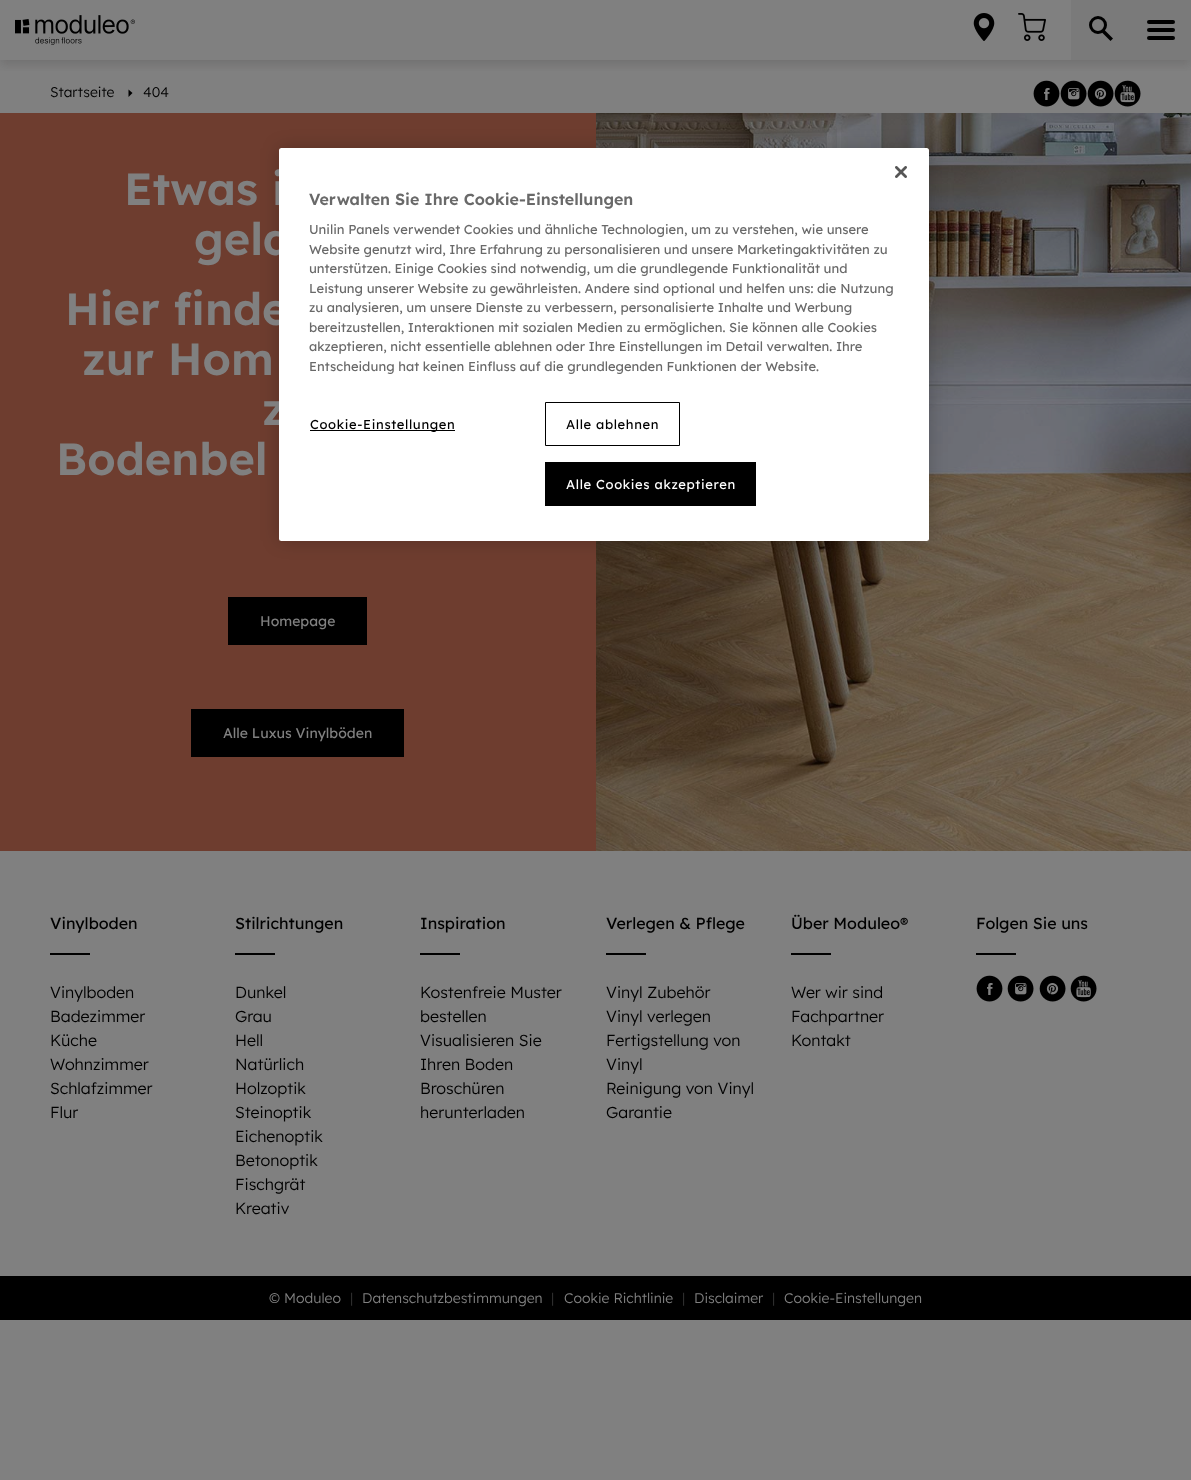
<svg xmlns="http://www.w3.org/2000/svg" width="1191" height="1480">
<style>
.a{font:300 14px Lexend Deca;fill:#000}
.b{font:600 45px Lexend Deca;fill:#808080}
.c{font:14px Lexend Deca;fill:#808080}
.d{font:600 16px Lexend Deca;fill:#696969}
.e{font:13px Lexend Deca;fill:#696969}
.f{font:13px Lexend Deca;letter-spacing:0.65px;fill:#000}
.g{font:13px Lexend Deca;letter-spacing:0.65px;fill:#fff}
.h{font:16px Lexend Deca;fill:#000}
.i{font:300 16px Lexend Deca;fill:#000}
.j{font:300 14px Lexend Deca;fill:#808080}
.k{font:300 14px Lexend Deca;fill:#333}
</style>
<defs>
<clipPath id="clip1"><path d="M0 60h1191v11H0z"/></clipPath>
</defs>
<rect width="100%" height="100%" fill="#808080"/>
<image href="4.png" x="1033" y="80" width="27" height="27"/>
<image href="5.png" x="1060" y="80" width="27" height="27"/>
<image href="6.png" x="1087" y="80" width="27" height="27"/>
<image href="7.png" x="1114" y="80" width="27" height="27"/>
<g clip-path="url(#clip1)">
<path fill="#3a373733" filter="blur(5px)" d="M0 5h1191v60H0z"/>
</g>
<image href="1.png" x="15" y="15" width="120" height="30"/>
<image href="2.png" x="973" y="13" width="22" height="28"/>
<image href="3.png" x="1018" y="13" width="28" height="28"/>
<path fill="#7a7a7a" d="M1071 0h120v60H1071z"/>
<path fill="#000" d="M1102.5 28l10.5 10.5l-2.5 2.5l-10.5-10.5z"/>
<circle fill="#7a7a7a" stroke="#000" stroke-width="3" cx="1098" cy="25" r="7.5"/>
<rect fill="#000" x="1147" y="20" width="28" height="4" rx="2"/>
<rect fill="#000" x="1147" y="28" width="28" height="4" rx="2"/>
<rect fill="#000" x="1147" y="36" width="28" height="4" rx="2"/>
<path fill="#000" d="M132.5 93l-4-3.5v7.5z"/>
<path fill="#6e3d2f" d="M0 113h596v738H0z"/>
<path fill="#000" d="M228 597h139v48H228z"/>
<path fill="#000" d="M191 709h213v48H191z"/>
<image href="8.png" x="596" y="113" width="595" height="738"/>
<rect fill="#00000033" filter="blur(9px)" x="279" y="148" width="650" height="393" rx="2.5"/>
<path fill="#000" d="M50 953h40v2H50z"/>
<path fill="#000" d="M235 953h40v2H235z"/>
<path fill="#000" d="M420 953h40v2H420z"/>
<path fill="#000" d="M606 953h40v2H606z"/>
<path fill="#000" d="M791 953h40v2H791z"/>
<path fill="#000" d="M976 953h40v2H976z"/>
<image href="4.png" x="976" y="975" width="27" height="27"/>
<image href="5.png" x="1007" y="975" width="27" height="27"/>
<image href="6.png" x="1039" y="975" width="27" height="27"/>
<image href="7.png" x="1070" y="975" width="27" height="27"/>
<path fill="#000" d="M0 1276h1191v44H0z"/>
<text class="a" x="50" y="97">Startseite</text>
<text class="a" x="143" y="97">404</text>
<text class="b" x="124" y="205">Etwas i</text>
<text class="b" x="194" y="255">gela</text>
<text class="b" x="65" y="325">Hier finde</text>
<text class="b" x="82" y="375">zur Hom</text>
<text class="b" x="262" y="425">z</text>
<text class="b" x="56" y="475">Bodenbel</text>
<text class="c" x="260" y="626">Homepage</text>
<text class="c" x="223" y="738">Alle Luxus Vinylböden</text>
<rect fill="#fff" x="279" y="148" width="650" height="393" rx="2.5"/>
<image href="9.png" x="895" y="166" width="12" height="12"/>
<text class="d" x="309" y="205">Verwalten Sie Ihre Cookie-Einstellungen</text>
<text class="e" x="309" y="234">Unilin Panels verwendet Cookies und ähnliche Technologien, um zu verstehen, wie unsere</text>
<text class="e" x="309" y="254">Website genutzt wird, Ihre Erfahrung zu personalisieren und unsere Marketingaktivitäten zu</text>
<text class="e" x="309" y="273">unterstützen. Einige Cookies sind notwendig, um die grundlegende Funktionalität und</text>
<text class="e" x="309" y="293">Leistung unserer Website zu gewährleisten. Andere sind optional und helfen uns: die Nutzung</text>
<text class="e" x="309" y="312">zu analysieren, um unsere Dienste zu verbessern, personalisierte Inhalte und Werbung</text>
<text class="e" x="309" y="332">bereitzustellen, Interaktionen mit sozialen Medien zu ermöglichen. Sie können alle Cookies</text>
<text class="e" x="309" y="351">akzeptieren, nicht essentielle ablehnen oder Ihre Einstellungen im Detail verwalten. Ihre</text>
<text class="e" x="309" y="371">Entscheidung hat keinen Einfluss auf die grundlegenden Funktionen der Website.</text>
<path fill="#000" d="M310 430h145v1H310z"/>
<text class="f" x="310" y="429">Cookie-Einstellungen</text>
<path fill="none" stroke="#000" d="M545.5 402.5h134v43H545.5z"/>
<text class="f" x="566" y="429">Alle ablehnen</text>
<path fill="#000" d="M545 462h211v44H545z"/>
<text class="g" x="566" y="489">Alle Cookies akzeptieren</text>
<text class="h" x="50" y="929">Vinylboden</text>
<text class="i" x="50" y="998">Vinylboden</text>
<text class="i" x="50" y="1022">Badezimmer</text>
<text class="i" x="50" y="1046">Küche</text>
<text class="i" x="50" y="1070">Wohnzimmer</text>
<text class="i" x="50" y="1094">Schlafzimmer</text>
<text class="i" x="50" y="1118">Flur</text>
<text class="h" x="235" y="929">Stilrichtungen</text>
<text class="i" x="235" y="998">Dunkel</text>
<text class="i" x="235" y="1022">Grau</text>
<text class="i" x="235" y="1046">Hell</text>
<text class="i" x="235" y="1070">Natürlich</text>
<text class="i" x="235" y="1094">Holzoptik</text>
<text class="i" x="235" y="1118">Steinoptik</text>
<text class="i" x="235" y="1142">Eichenoptik</text>
<text class="i" x="235" y="1166">Betonoptik</text>
<text class="i" x="235" y="1190">Fischgrät</text>
<text class="i" x="235" y="1214">Kreativ</text>
<text class="h" x="420" y="929">Inspiration</text>
<text class="i" x="420" y="998">Kostenfreie Muster</text>
<text class="i" x="420" y="1022">bestellen</text>
<text class="i" x="420" y="1046">Visualisieren Sie</text>
<text class="i" x="420" y="1070">Ihren Boden</text>
<text class="i" x="420" y="1094">Broschüren</text>
<text class="i" x="420" y="1118">herunterladen</text>
<text class="h" x="606" y="929">Verlegen &amp; Pflege</text>
<text class="i" x="606" y="998">Vinyl Zubehör</text>
<text class="i" x="606" y="1022">Vinyl verlegen</text>
<text class="i" x="606" y="1046">Fertigstellung von</text>
<text class="i" x="606" y="1070">Vinyl</text>
<text class="i" x="606" y="1094">Reinigung von Vinyl</text>
<text class="i" x="606" y="1118">Garantie</text>
<text class="h" x="791" y="929">Über Moduleo®</text>
<text class="i" x="791" y="998">Wer wir sind</text>
<text class="i" x="791" y="1022">Fachpartner</text>
<text class="i" x="791" y="1046">Kontakt</text>
<text class="h" x="976" y="929">Folgen Sie uns</text>
<text class="j" x="269" y="1303">© Moduleo</text>
<text class="k" x="350" y="1303">|</text>
<text class="j" x="362" y="1303">Datenschutzbestimmungen</text>
<text class="k" x="551" y="1303">|</text>
<text class="j" x="564" y="1303">Cookie Richtlinie</text>
<text class="k" x="682" y="1303">|</text>
<text class="j" x="694" y="1303">Disclaimer</text>
<text class="k" x="772" y="1303">|</text>
<text class="j" x="784" y="1303">Cookie-Einstellungen</text>
</svg>
